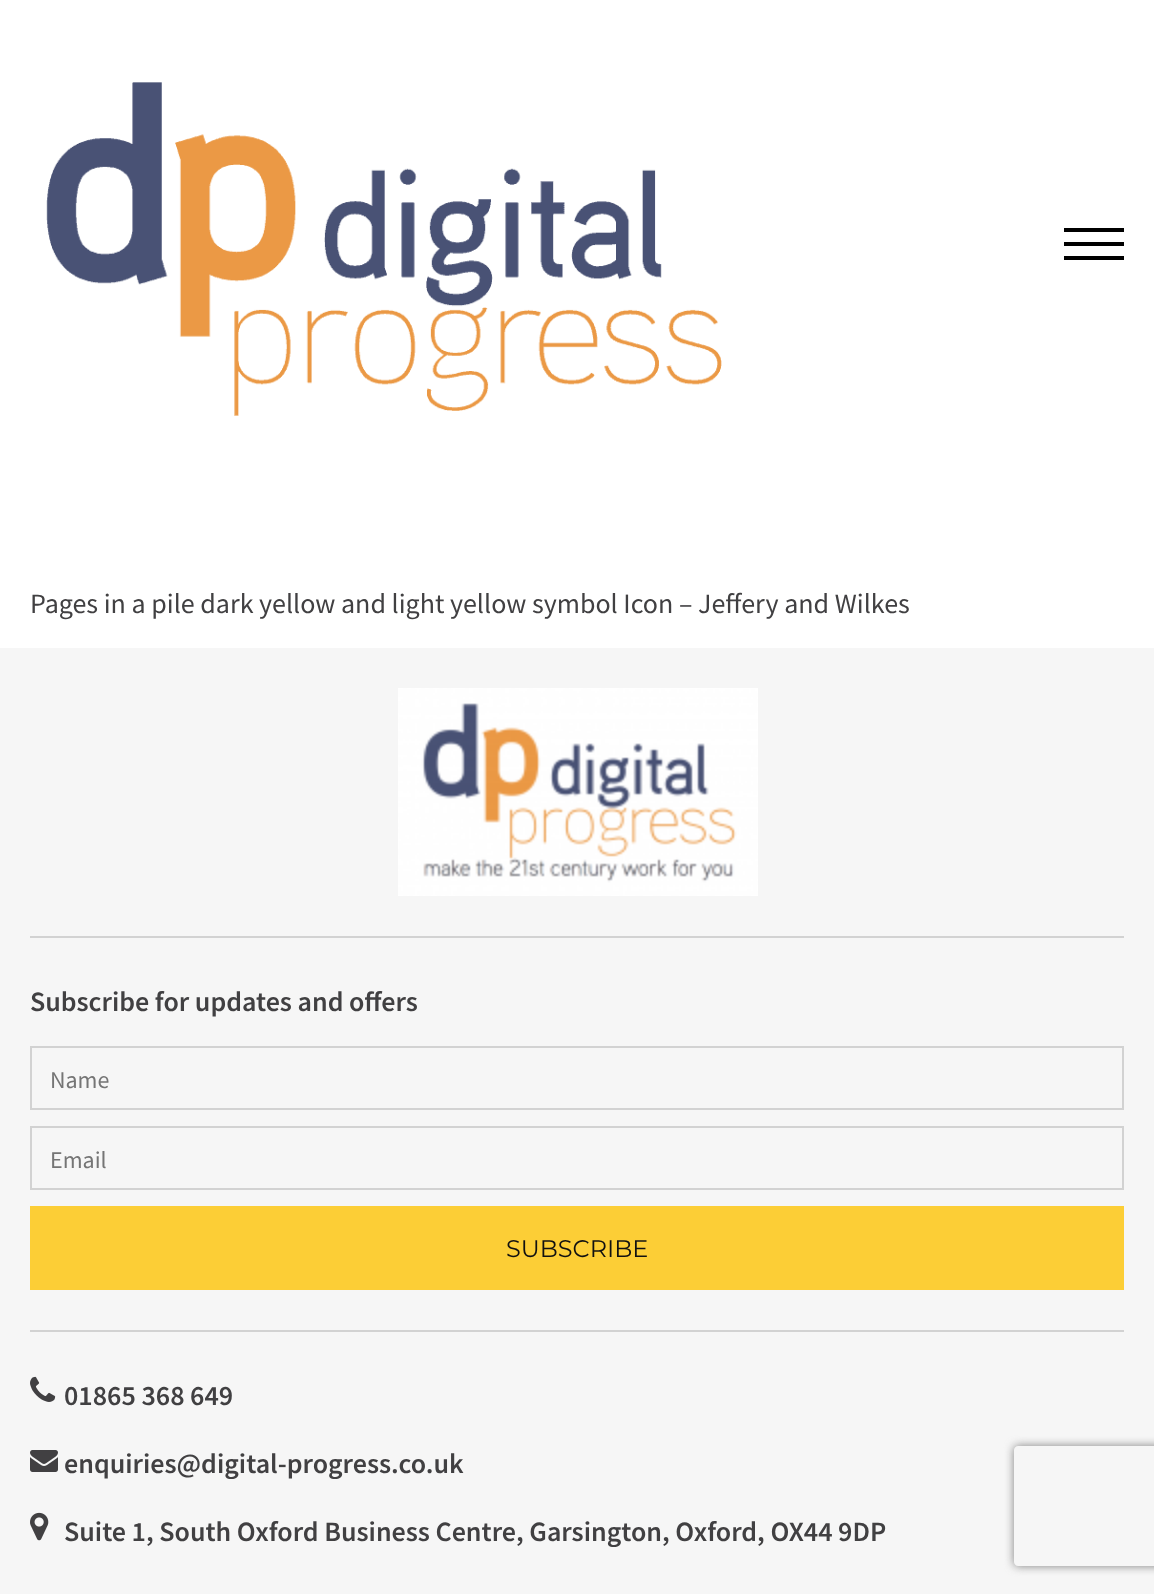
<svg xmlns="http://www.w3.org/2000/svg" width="1154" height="1594">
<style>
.a{font:28px Source Sans Pro;fill:#414042}
.b{font:600 28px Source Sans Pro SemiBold;fill:#414042}
.c{font:24px Source Sans Pro;fill:#757575}
.d{font:24px Montserrat;fill:#111}
</style>
<defs>
<clipPath id="clip1"><path d="M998 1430h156v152h-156zm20 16h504c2 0 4 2 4 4v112c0 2-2 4-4 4h-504c-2 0-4-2-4-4v-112c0-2 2-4 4-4z" clip-rule="evenodd"/></clipPath>
</defs>
<rect width="100%" height="100%" fill="#fff"/>
<image href="1.png" x="46" y="82" width="676" height="334"/>
<path fill="#000" d="M1064 228h60v4H1064z"/>
<path fill="#000" d="M1064 242h60v4H1064z"/>
<path fill="#000" d="M1064 256h60v4H1064z"/>
<path fill="#f6f6f6" d="M0 648h1154v946H0z"/>
<path fill="#d2d2d2" d="M30 936h1094v2H30z"/>
<image href="2.png" x="398" y="688" width="360" height="208"/>
<path fill="#d2d2d2" d="M30 1330h1094v2H30z"/>
<path fill="none" stroke="#d2d2d2" stroke-width="2" d="M31 1047h1092v62H31z"/>
<path fill="none" stroke="#d2d2d2" stroke-width="2" d="M31 1127h1092v62H31z"/>
<path fill="#fcce36" d="M30 1206h1094v84H30z"/>
<image href="3.png" x="30" y="1376" width="26" height="26"/>
<image href="4.png" x="30" y="1450" width="28" height="22"/>
<image href="5.png" x="30" y="1512" width="19" height="29"/>
<g clip-path="url(#clip1)">
<rect fill="#808080" filter="blur(5px)" x="1014" y="1446" width="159" height="120" rx="4"/>
</g>
<text class="a" x="30" y="613">Pages in a pile dark yellow and light yellow symbol Icon – Jeffery and Wilkes</text>
<text class="b" x="30" y="1011">Subscribe for updates and offers</text>
<text class="c" x="50" y="1088">Name</text>
<text class="c" x="50" y="1168">Email</text>
<text class="d" x="506" y="1257">SUBSCRIBE</text>
<text class="b" x="64" y="1405">01865 368 649</text>
<text class="b" x="64" y="1473">enquiries@digital-progress.co.uk</text>
<text class="b" x="64" y="1541">Suite 1, South Oxford Business Centre, Garsington, Oxford, OX44 9DP</text>
</svg>
